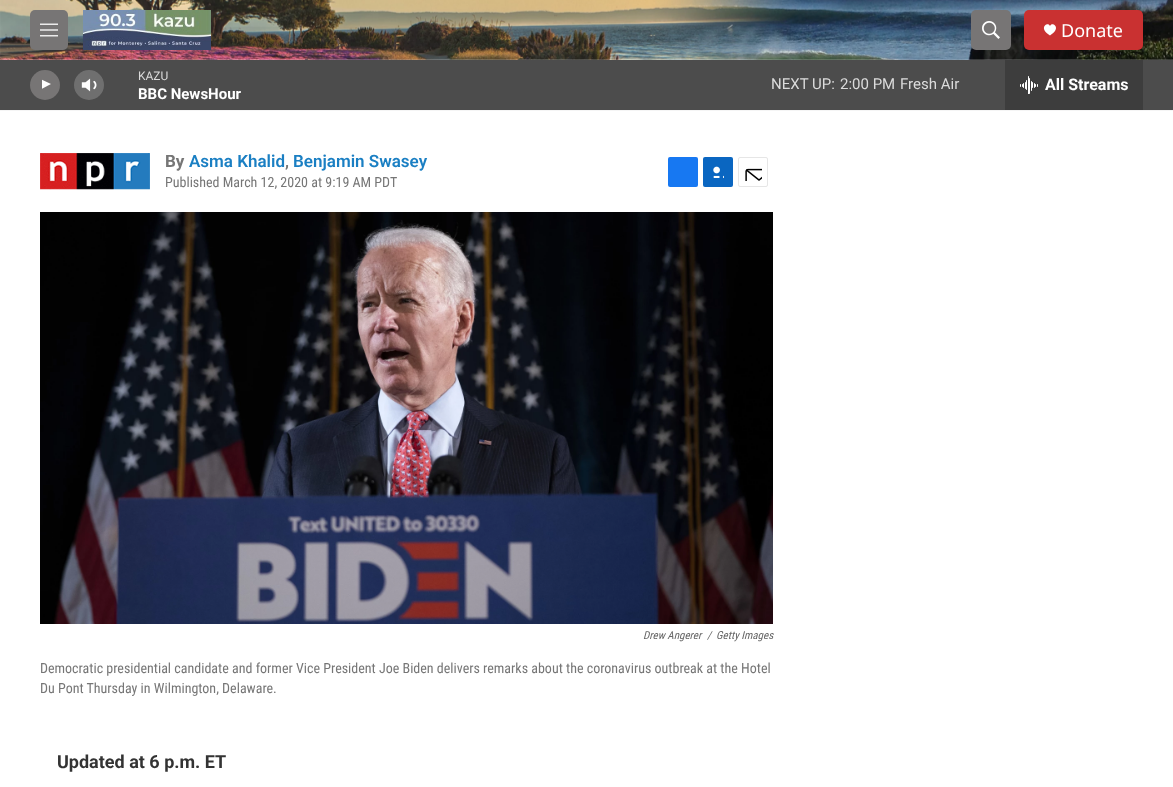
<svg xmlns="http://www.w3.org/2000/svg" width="1173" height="787">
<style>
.a{font:18px Noto Sans;fill:#fff}
.b{font:12px Roboto;fill:#dbdbdb}
.c{font:bold 15px 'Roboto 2';fill:#fff}
.d{font:15px Roboto;fill:#dbdbdb}
.e{font:bold 16px 'Roboto 2';fill:#fff}
.f{font:bold 17px Roboto;fill:#767676}
.g{font:600 17px Roboto;fill:#1a7fc3}
.h{font:600 17px Roboto;fill:#767676}
.i{font:14px Roboto Condensed;fill:#767676}
.j{font:italic 11px Roboto Condensed;fill:#666}
.k{font:bold 18px 'Roboto 2';fill:#333}
</style>
<defs>
<clipPath id="clip1"><path d="M42 78h12v15H42z"/></clipPath>
</defs>
<rect width="100%" height="100%" fill="#fff"/>
<path fill="#f5f5f5" d="M0 110h1173v1H0z"/>
<image href="1.png" x="0" y="0" width="1173" height="60"/>
<rect fill="#777575" x="30" y="10" width="38" height="40" rx="5"/>
<image href="2.png" x="40" y="23" width="18" height="14"/>
<image href="3.png" x="83" y="10" width="128" height="40"/>
<rect fill="#777575" x="971" y="10" width="40" height="40" rx="5"/>
<image href="4.png" x="982" y="21" width="18" height="18"/>
<rect fill="#c93131" x="1024" y="10" width="119" height="40" rx="5"/>
<path fill="#fff" d="M1050 26c-2-5-12.5 2 0 9.5c12.5-7.5 2-14.5 0-9.5z"/>
<path fill="#4c4c4c" d="M0 60h1173v50H0z"/>
<circle fill="#777575" cx="45" cy="85" r="15"/>
<g clip-path="url(#clip1)">
<path fill="#fff" d="M41.5 79.5l9.5 4.5l-9.5 5z"/>
</g>
<image href="5.png" x="81" y="78" width="16" height="14"/>
<circle fill="#ffffff33" cx="89" cy="85" r="15"/>
<path fill="#3d3d3d" d="M1005 60h138v50H1005z"/>
<image href="6.png" x="1020" y="76" width="18" height="18"/>
<image href="7.png" x="40" y="153" width="110" height="37"/>
<rect fill="#1778f2" x="668" y="157" width="30" height="30" rx="2"/>
<rect fill="#0a66c1" x="703" y="157" width="30" height="30" rx="2"/>
<image href="8.png" x="713" y="166" width="11" height="12"/>
<rect fill="none" stroke="#e6e6e6" x="738.5" y="157.5" width="29" height="29" rx="1.5"/>
<image href="9.png" x="745" y="168" width="17" height="13"/>
<image href="10.png" x="40" y="212" width="733" height="412"/>
<text class="a" x="1061" y="37">Donate</text>
<text class="b" x="138" y="80">KAZU</text>
<text class="c" x="138" y="99">BBC NewsHour</text>
<text class="d" x="771" y="89">NEXT UP:</text>
<text class="d" x="840" y="89">2:00 PM</text>
<text class="d" x="900" y="89">Fresh Air</text>
<text class="e" x="1045" y="90">All Streams</text>
<text class="f" x="165" y="167">By</text>
<text class="g" x="189" y="167">Asma Khalid</text>
<text class="h" x="285" y="167">,</text>
<text class="g" x="293" y="167">Benjamin Swasey</text>
<text class="i" x="165" y="187">Published March 12, 2020 at 9:19 AM PDT</text>
<text class="j" x="643" y="639">Drew Angerer</text>
<text class="j" x="707" y="639">/</text>
<text class="j" x="716" y="639">Getty Images</text>
<text class="i" x="40" y="673">Democratic presidential candidate and former Vice President Joe Biden delivers remarks about the coronavirus outbreak at the Hotel</text>
<text class="i" x="40" y="693">Du Pont Thursday in Wilmington, Delaware.</text>
<text class="k" x="57" y="768">Updated at 6 p.m. ET</text>
</svg>
